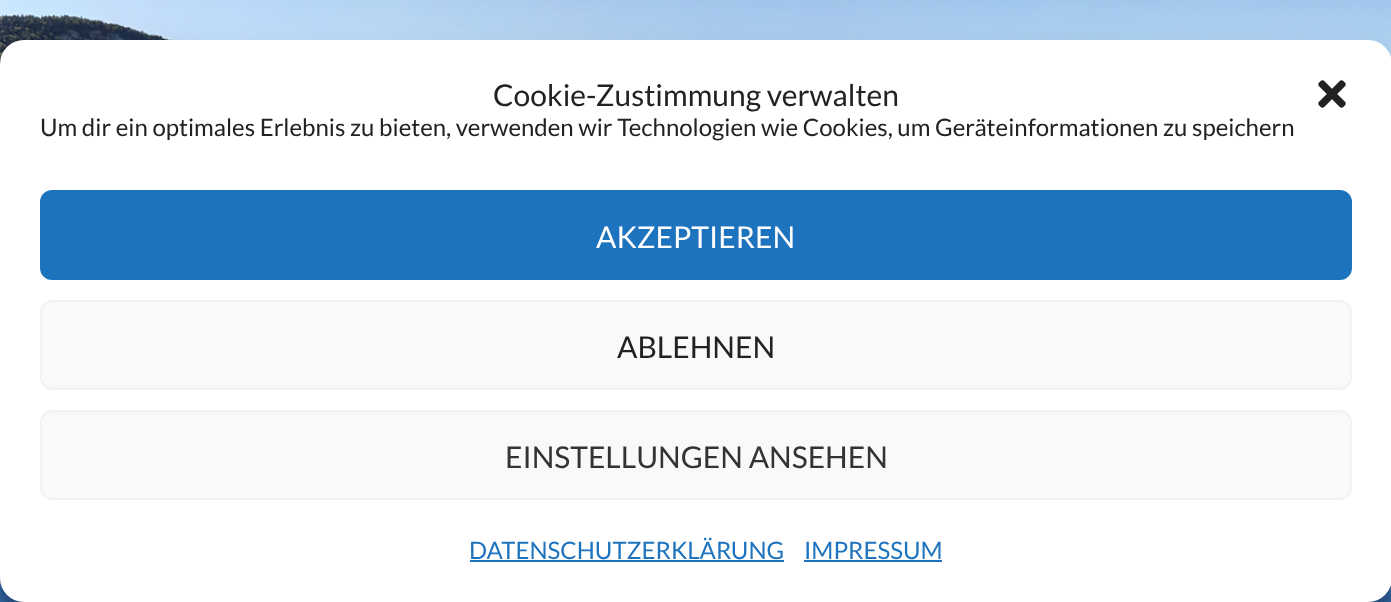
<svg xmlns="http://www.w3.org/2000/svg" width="1391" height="602">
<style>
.a{font:30px Lato;fill:#222}
.b{font:24px Lato;fill:#222}
.c{font:30px Lato;fill:#fff}
.d{font:30px Lato;fill:#333}
.e{font:24px Lato;fill:#1e73be}
</style>
<rect width="100%" height="100%" fill="#366db0"/>
<image href="1.png" x="0" y="0" width="1391" height="64"/>
<rect fill="#0000003b" filter="blur(6px)" y="52" width="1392" height="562" rx="24"/>
<rect fill="#00000030" filter="blur(20px)" y="60" width="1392" height="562" rx="24"/>
<rect fill="#fff" y="40" width="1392" height="562" rx="24"/>
<image href="2.png" x="1318" y="80" width="28" height="28"/>
<rect fill="#1e73be" stroke="#1e73be" stroke-width="2" x="41" y="191" width="1310" height="88" rx="11"/>
<rect fill="#f9f9f9" stroke="#f2f2f2" stroke-width="2" x="41" y="301" width="1310" height="88" rx="11"/>
<rect fill="#f9f9f9" stroke="#f2f2f2" stroke-width="2" x="41" y="411" width="1310" height="88" rx="11"/>
<path fill="#1e73be" d="M470 560h314v2H470z"/>
<path fill="#1e73be" d="M804 560h138v2H804z"/>
<text class="a" x="493" y="106">Cookie-Zustimmung verwalten</text>
<text class="b" x="40" y="136">Um dir ein optimales Erlebnis zu bieten, verwenden wir Technologien wie Cookies, um Geräteinformationen zu speichern</text>
<text class="c" x="596" y="248">AKZEPTIEREN</text>
<text class="a" x="617" y="358">ABLEHNEN</text>
<text class="d" x="505" y="468">EINSTELLUNGEN ANSEHEN</text>
<text class="e" x="469" y="559">DATENSCHUTZERKLÄRUNG</text>
<text class="e" x="804" y="559">IMPRESSUM</text>
</svg>
